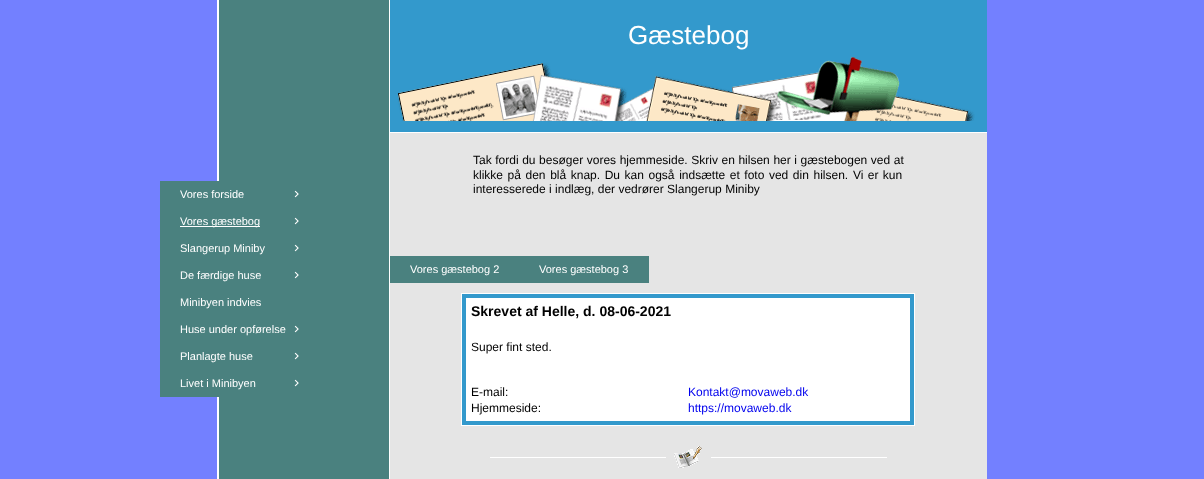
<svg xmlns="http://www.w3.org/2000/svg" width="1204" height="479">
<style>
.a{font:11px Liberation Sans;fill:#fff}
.b{font:26px Liberation Sans;fill:#fff}
.c{font:12px Liberation Sans;fill:#000}
.d{font:bold 14px Liberation Sans;fill:#000}
.e{font:12px Liberation Sans;fill:#00e}
</style>
<rect width="100%" height="100%" fill="#7380ff"/>
<path fill="#fff" d="M217 0h173v479H217z"/>
<path fill="#4a817f" d="M160 181h59v216H160z"/>
<path fill="#4a817f" d="M219 0h170v479H219z"/>
<image href="1.png" x="294" y="190" width="5" height="8"/>
<path fill="#fff" d="M180 226h80v1H180z"/>
<image href="1.png" x="294" y="217" width="5" height="8"/>
<image href="1.png" x="294" y="244" width="5" height="8"/>
<image href="1.png" x="294" y="271" width="5" height="8"/>
<image href="1.png" x="294" y="325" width="5" height="8"/>
<image href="1.png" x="294" y="352" width="5" height="8"/>
<image href="1.png" x="294" y="379" width="5" height="8"/>
<path fill="#e5e5e5" d="M390 133h597v346H390z"/>
<path fill="#39c" d="M390 0h597v132H390z"/>
<image href="2.png" x="397" y="56" width="578" height="65"/>
<path fill="#fff" d="M390 132h597v1H390z"/>
<path fill="#4a817f" d="M390 256h259v27H390z"/>
<path fill="#fff" d="M461 293h454v133H461z"/>
<path fill="#39c" d="M462 294h452v131H462z"/>
<path fill="#fff" d="M466 298h444v123H466z"/>
<path fill="#fff" d="M490 457h176v1H490z"/>
<image href="3.png" x="674" y="446" width="28" height="22"/>
<path fill="#fff" d="M711 457h176v1H711z"/>
<text class="a" x="180" y="198">Vores forside</text>
<text class="a" x="180" y="225">Vores gæstebog</text>
<text class="a" x="180" y="252">Slangerup Miniby</text>
<text class="a" x="180" y="279">De færdige huse</text>
<text class="a" x="180" y="306">Minibyen indvies</text>
<text class="a" x="180" y="333">Huse under opførelse</text>
<text class="a" x="180" y="360">Planlagte huse</text>
<text class="a" x="180" y="387">Livet i Minibyen</text>
<text class="b" x="628" y="44">Gæstebog</text>
<text class="c" x="473" y="164" word-spacing="0.25">Tak fordi du besøger vores hjemmeside. Skriv en hilsen her i gæstebogen ved at</text>
<text class="c" x="473" y="179" word-spacing="1.25">klikke på den blå knap. Du kan også indsætte et foto ved din hilsen.</text>
<text class="c" x="853" y="179" word-spacing="1">Vi er kun</text>
<text class="c" x="473" y="193">interesserede i indlæg, der vedrører Slangerup Miniby</text>
<text class="a" x="410" y="273">Vores gæstebog 2</text>
<text class="a" x="539" y="273">Vores gæstebog 3</text>
<text class="d" x="471" y="316">Skrevet af Helle, d. 08-06-2021</text>
<text class="c" x="471" y="351">Super fint sted.</text>
<text class="c" x="471" y="396">E-mail:</text>
<text class="e" x="688" y="396">Kontakt@movaweb.dk</text>
<text class="c" x="471" y="412">Hjemmeside:</text>
<text class="e" x="688" y="412">https://movaweb.dk</text>
</svg>
